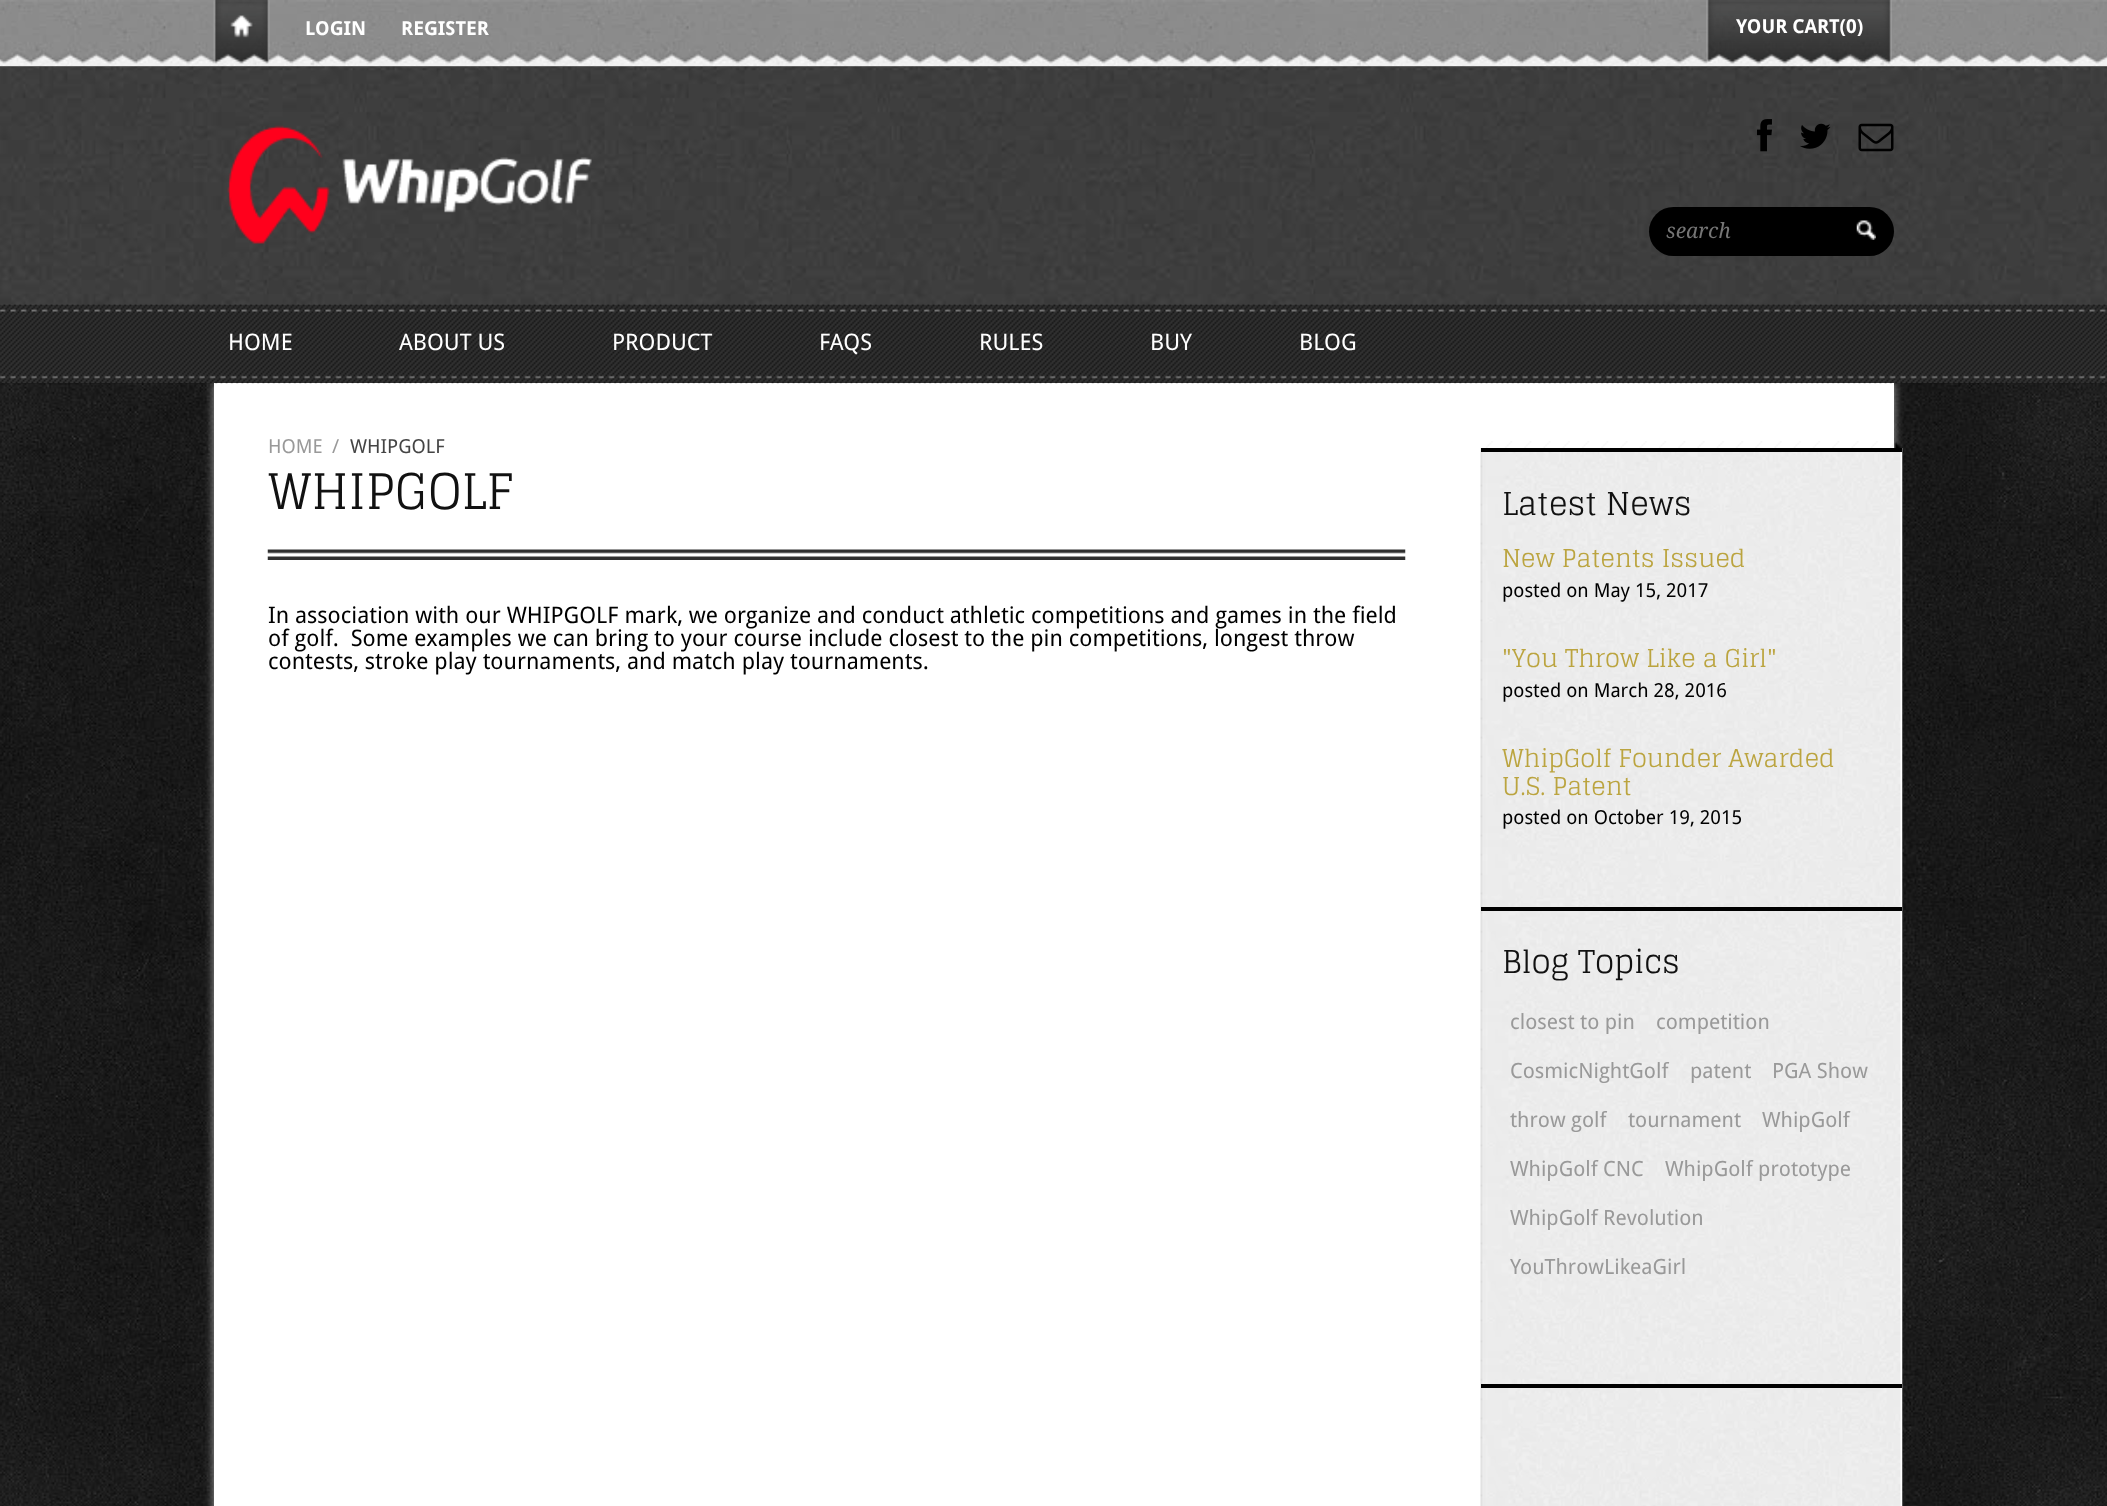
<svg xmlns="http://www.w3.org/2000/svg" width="2107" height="1506">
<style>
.a{font:bold 19.25px Droid Sans;fill:#fff}
.b{font:italic 21px Droid Serif;fill:#757575}
.c{font:22.75px Droid Sans;fill:#fff}
.d{font:19.25px Droid Sans;fill:#999}
.e{font:19.25px Droid Sans;fill:#444}
.f{font:49px Glegoo;fill:#111}
.g{font:22.75px Droid Sans;fill:#000}
.h{font:31.5px Glegoo;fill:#111}
.i{font:24.5px Glegoo;fill:#bba43f}
.j{font:19.25px Droid Sans;fill:#000}
.k{font:21px Droid Sans;fill:#999}
</style>
<rect width="100%" height="100%" fill="#fff"/>
<image href="1.png" x="0" y="66" width="2107" height="1440"/>
<image href="2.png" x="0" y="0" width="2107" height="67"/>
<image href="3.png" x="213" y="0" width="57" height="64"/>
<image href="4.png" x="1706" y="0" width="186" height="64"/>
<image href="5.png" x="0" y="66" width="2107" height="239"/>
<image href="6.png" x="227" y="125" width="365" height="119"/>
<image href="7.png" x="1757" y="119" width="15" height="33"/>
<image href="8.png" x="1800" y="123" width="31" height="26"/>
<image href="9.png" x="1858" y="123" width="36" height="29"/>
<rect fill="#000" x="1649" y="207" width="245" height="49" rx="24.5"/>
<image href="10.png" x="1856" y="220" width="20" height="20"/>
<path fill="#a6a6a6" filter="blur(5px)" d="M214 383h1680v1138H214z"/>
<path fill="#313131" d="M0 305h2107v78H0z"/>
<path fill="#fff" d="M214 383h1680v1123H214z"/>
<image href="11.png" x="0" y="304" width="2107" height="80"/>
<image href="12.png" x="267" y="549" width="1139" height="11"/>
<image href="13.png" x="1486" y="441" width="415" height="7"/>
<image href="14.png" x="1480" y="448" width="423" height="1058"/>
<path fill="#000" d="M1481 448h421v4H1481z"/>
<path fill="#000" d="M1481 907h421v4H1481z"/>
<path fill="#000" d="M1481 1384h421v4H1481z"/>
<text class="a" x="305" y="35">LOGIN</text>
<text class="a" x="401" y="35">REGISTER</text>
<text class="a" x="1736" y="33">YOUR CART(0)</text>
<text class="b" x="1666" y="238">search</text>
<text class="c" x="228" y="350">HOME</text>
<text class="c" x="399" y="350">ABOUT US</text>
<text class="c" x="612" y="350">PRODUCT</text>
<text class="c" x="819" y="350">FAQS</text>
<text class="c" x="979" y="350">RULES</text>
<text class="c" x="1150" y="350">BUY</text>
<text class="c" x="1299" y="350">BLOG</text>
<text class="d" x="268" y="453">HOME</text>
<text class="d" x="332" y="453">/</text>
<text class="e" x="350" y="453">WHIPGOLF</text>
<text class="f" x="268" y="509">WHIPGOLF</text>
<text class="g" x="268" y="623">In association with our WHIPGOLF mark, we organize and conduct athletic competitions and games in the field</text>
<text class="g" xml:space="preserve" x="268" y="646">of golf.  Some examples we can bring to your course include closest to the pin competitions, longest throw</text>
<text class="g" x="268" y="669">contests, stroke play tournaments, and match play tournaments.</text>
<text class="h" x="1502" y="515">Latest News</text>
<text class="i" x="1502" y="567">New Patents Issued</text>
<text class="j" x="1502" y="597">posted on May 15, 2017</text>
<text class="i" x="1502" y="667">"You Throw Like a Girl"</text>
<text class="j" x="1502" y="697">posted on March 28, 2016</text>
<text class="i" x="1502" y="767">WhipGolf Founder Awarded</text>
<text class="i" x="1502" y="795">U.S. Patent</text>
<text class="j" x="1502" y="824">posted on October 19, 2015</text>
<text class="h" x="1502" y="973">Blog Topics</text>
<text class="k" x="1510" y="1029">closest to pin</text>
<text class="k" x="1656" y="1029">competition</text>
<text class="k" x="1510" y="1078">CosmicNightGolf</text>
<text class="k" x="1690" y="1078">patent</text>
<text class="k" x="1772" y="1078">PGA Show</text>
<text class="k" x="1510" y="1127">throw golf</text>
<text class="k" x="1628" y="1127">tournament</text>
<text class="k" x="1762" y="1127">WhipGolf</text>
<text class="k" x="1510" y="1176">WhipGolf CNC</text>
<text class="k" x="1665" y="1176">WhipGolf prototype</text>
<text class="k" x="1510" y="1225">WhipGolf Revolution</text>
<text class="k" x="1510" y="1274">YouThrowLikeaGirl</text>
</svg>
